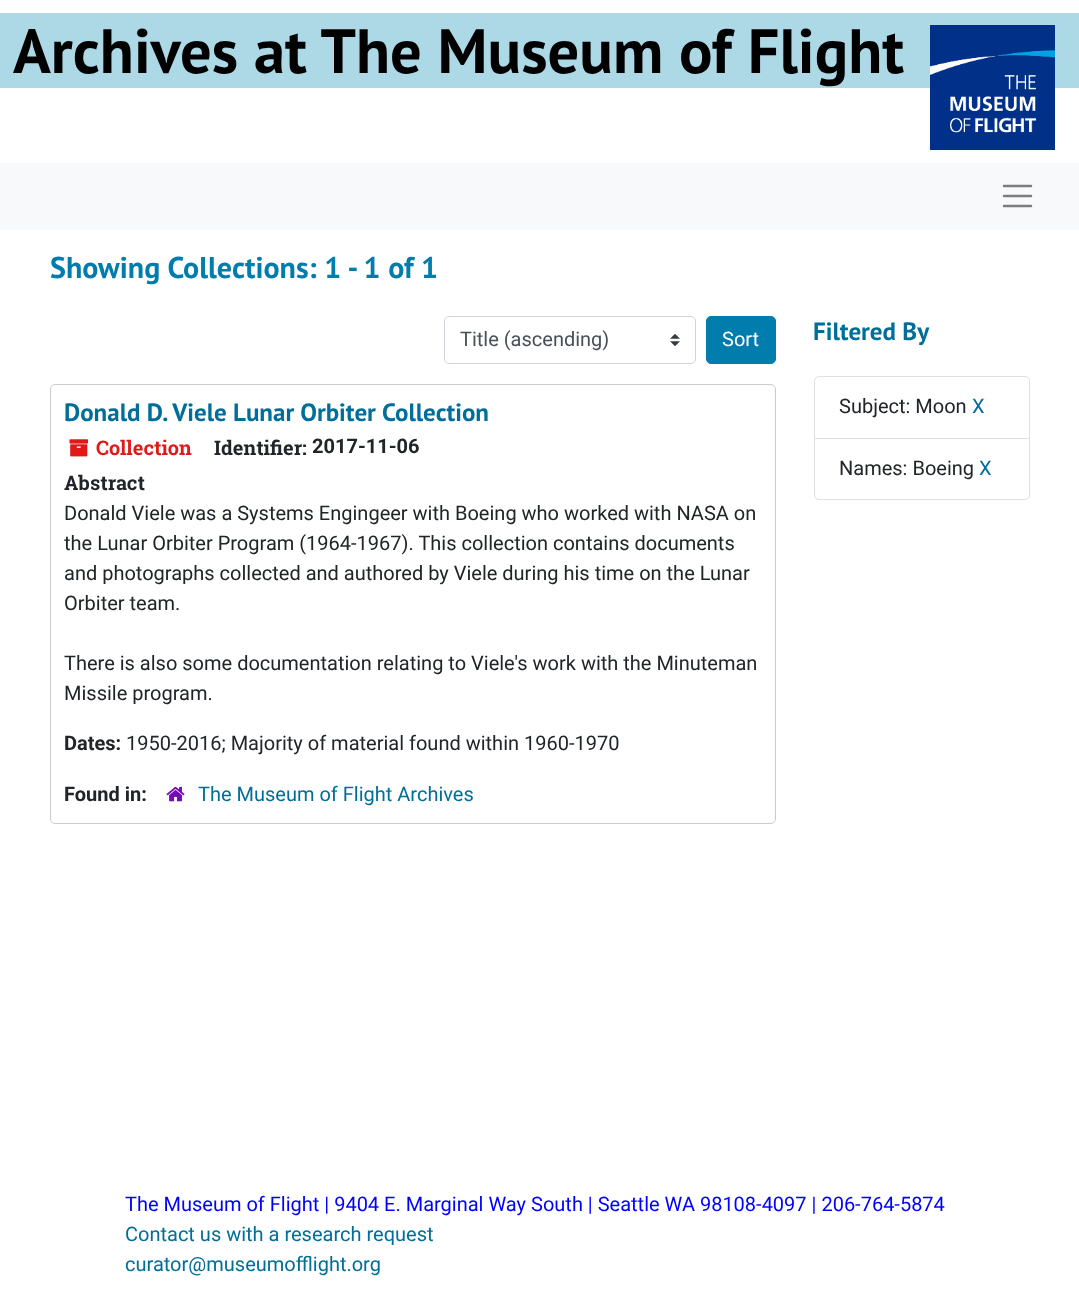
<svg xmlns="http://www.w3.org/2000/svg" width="1079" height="1300">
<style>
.a{font:bold 62.5px PT Sans;fill:#000}
.b{font:bold 30px PT Sans;fill:#007cad}
.c{font:20px Roboto;fill:#495057}
.d{font:20px Roboto;fill:#fff}
.e{font:bold 25px PT Sans;fill:#006e99}
.f{font:bold 20px Roboto Slab;fill:#e01919}
.g{font:bold 20px Roboto Slab;fill:#212529}
.h{font:bold 20px Roboto;fill:#212529}
.i{font:20px Roboto;fill:#212529}
.j{font:20px Roboto;fill:#006e99}
.k{font:20px Roboto;fill:#00f}
</style>
<rect width="100%" height="100%" fill="#fff"/>
<path fill="#add8e6" d="M0 13h1079v75H0z"/>
<image href="1.png" x="930" y="25" width="125" height="125"/>
<path fill="#f8f9fa" d="M0 163h1079v67H0z"/>
<path fill="none" stroke="#7c7d7d" stroke-width="2.5" stroke-linecap="round" d="M1004 186h27m-27 10h27m-27 10h27"/>
<image href="2.png" x="670" y="334" width="10" height="12"/>
<rect fill="none" stroke="#ced4da" x="444.5" y="316.5" width="251" height="47" rx="4.5"/>
<rect fill="#007cad" stroke="#007cad" x="706.5" y="316.5" width="69" height="47" rx="4.5"/>
<rect fill="none" stroke="#ccc" x="50.5" y="384.5" width="725" height="439" rx="4.5"/>
<image href="3.png" x="69" y="439" width="20" height="18"/>
<image href="4.png" x="166" y="786" width="19" height="16"/>
<path fill="none" stroke="#dfdfdf" d="M819 376.5h206c2.5 0 4.5 2 4.5 4.5v57.5h-215v-57.5c0-2.5 2-4.5 4.5-4.5z"/>
<path fill="#fff" stroke="#dfdfdf" d="M814.5 438.5h215v56.5c0 2.5-2 4.5-4.5 4.5h-206c-2.5 0-4.5-2-4.5-4.5z"/>
<text class="a" x="13" y="73">Archives at The Museum of Flight</text>
<text class="b" x="50" y="278">Showing Collections: 1 - 1 of 1</text>
<text class="c" x="460" y="346">Title (ascending)</text>
<text class="d" x="722" y="346">Sort</text>
<text class="e" x="64" y="421">Donald D. Viele Lunar Orbiter Collection</text>
<text class="f" x="96" y="455">Collection</text>
<text class="g" x="214" y="455">Identifier:</text>
<text class="h" x="312" y="453">2017-11-06</text>
<text class="g" x="64" y="490">Abstract</text>
<text class="i" x="64" y="520">Donald Viele was a Systems Engingeer with Boeing who worked with NASA on</text>
<text class="i" x="64" y="550">the Lunar Orbiter Program (1964-1967). This collection contains documents</text>
<text class="i" x="64" y="580">and photographs collected and authored by Viele during his time on the Lunar</text>
<text class="i" x="64" y="610">Orbiter team.</text>
<text class="i" x="64" y="670">There is also some documentation relating to Viele's work with the Minuteman</text>
<text class="i" x="64" y="700">Missile program.</text>
<text class="h" x="64" y="750">Dates:</text>
<text class="i" x="126" y="750">1950-2016; Majority of material found within 1960-1970</text>
<text class="h" x="64" y="801">Found in:</text>
<text class="j" x="198" y="801">The Museum of Flight Archives</text>
<text class="e" x="813" y="340">Filtered By</text>
<text class="i" x="839" y="413">Subject: Moon</text>
<text class="j" x="972" y="413">X</text>
<text class="i" x="839" y="475">Names: Boeing</text>
<text class="j" x="979" y="475">X</text>
<text class="k" x="125" y="1211">The Museum of Flight | 9404 E. Marginal Way South | Seattle WA 98108-4097 | 206-764-5874</text>
<text class="j" x="125" y="1241">Contact us with a research request</text>
<text class="j" x="125" y="1271">curator@museumofflight.org</text>
</svg>
